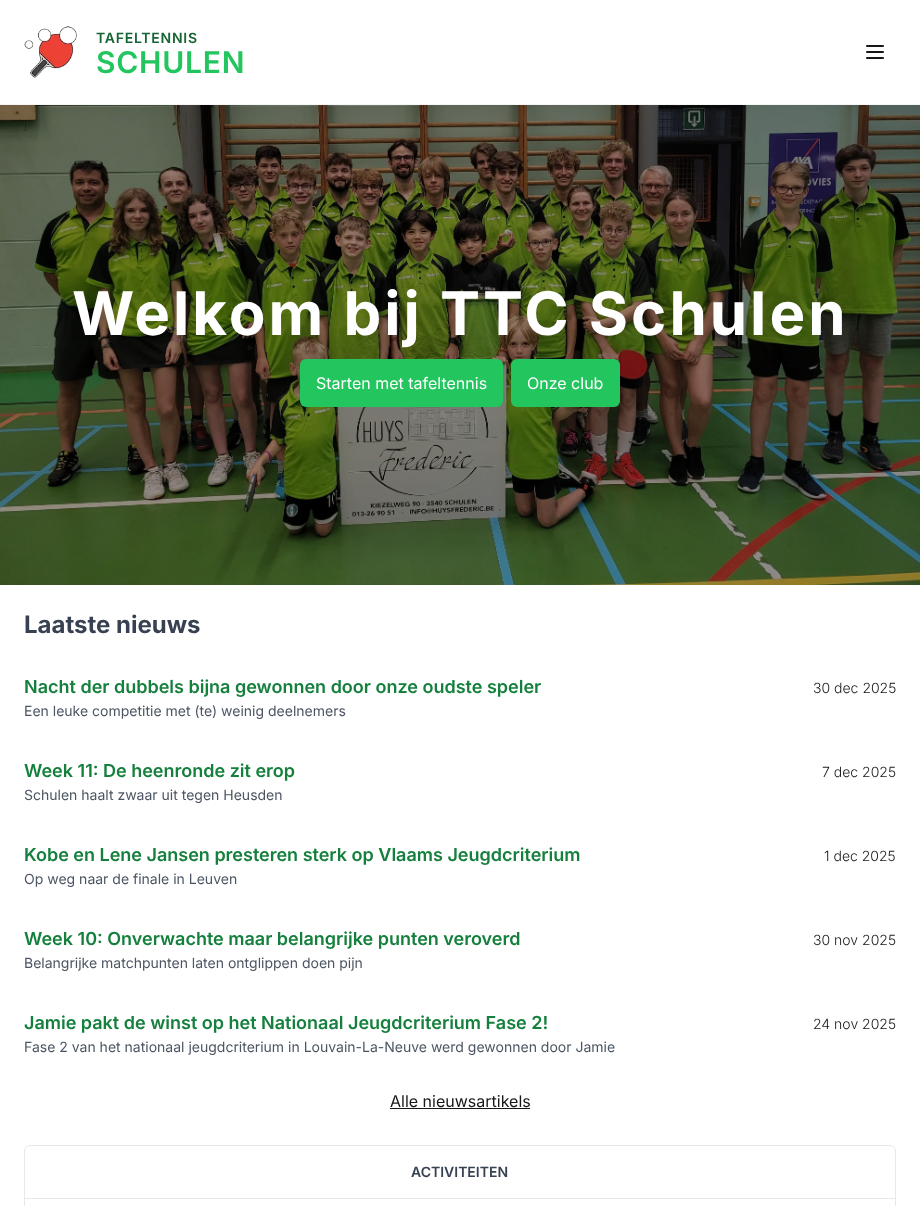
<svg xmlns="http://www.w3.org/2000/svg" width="920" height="1206">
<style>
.a{font:600 14px Inter;letter-spacing:0.75px;fill:#166534}
.b{font:600 30px Inter;letter-spacing:0.75px;fill:#22c55e}
.c{font:bold 60px Inter;letter-spacing:3px;fill:#fff}
.d{font:16px Inter;fill:#fff}
.e{font:bold 24px Inter;fill:#374151}
.f{font:600 18px Inter;fill:#15803d}
.g{font:300 14px Inter;fill:#171717}
.h{font:14px Inter;fill:#4b5563}
.i{font:16px Inter;fill:#171717}
.j{font:600 14px Inter;fill:#374151}
</style>
<rect width="100%" height="100%" fill="#fff"/>
<path fill="#f5f5f5" d="M0 104h920v1H0z"/>
<image href="1.png" x="24" y="26" width="53" height="52"/>
<image href="2.png" x="866" y="45" width="18" height="14"/>
<image href="3.png" x="0" y="105" width="920" height="480"/>
<rect fill="#22c55e" x="300" y="359" width="203" height="48" rx="6"/>
<rect fill="#22c55e" x="511" y="359" width="109" height="48" rx="6"/>
<path fill="#171717" d="M390 1108h140v1H390z"/>
<rect fill="none" stroke="#e7e8e9" x="24.5" y="1145.5" width="871" height="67" rx="5.5"/>
<path fill="#e7e8e9" d="M25 1198h870v1H25z"/>
<text class="a" x="96" y="43">TAFELTENNIS</text>
<text class="b" x="96" y="73">SCHULEN</text>
<text class="c" x="72" y="335">Welkom bij TTC Schulen</text>
<text class="d" x="316" y="389">Starten met tafeltennis</text>
<text class="d" x="527" y="389">Onze club</text>
<text class="e" x="24" y="633">Laatste nieuws</text>
<text class="f" x="24" y="693">Nacht der dubbels bijna gewonnen door onze oudste speler</text>
<text class="g" x="813" y="693">30 dec 2025</text>
<text class="h" x="24" y="716">Een leuke competitie met (te) weinig deelnemers</text>
<text class="f" x="24" y="777">Week 11: De heenronde zit erop</text>
<text class="g" x="822" y="777">7 dec 2025</text>
<text class="h" x="24" y="800">Schulen haalt zwaar uit tegen Heusden</text>
<text class="f" x="24" y="861">Kobe en Lene Jansen presteren sterk op Vlaams Jeugdcriterium</text>
<text class="g" x="824" y="861">1 dec 2025</text>
<text class="h" x="24" y="884">Op weg naar de finale in Leuven</text>
<text class="f" x="24" y="945">Week 10: Onverwachte maar belangrijke punten veroverd</text>
<text class="g" x="813" y="945">30 nov 2025</text>
<text class="h" x="24" y="968">Belangrijke matchpunten laten ontglippen doen pijn</text>
<text class="f" x="24" y="1029">Jamie pakt de winst op het Nationaal Jeugdcriterium Fase 2!</text>
<text class="g" x="813" y="1029">24 nov 2025</text>
<text class="h" x="24" y="1052">Fase 2 van het nationaal jeugdcriterium in Louvain-La-Neuve werd gewonnen door Jamie</text>
<text class="i" x="390" y="1107">Alle nieuwsartikels</text>
<text class="j" x="411" y="1177">ACTIVITEITEN</text>
</svg>
